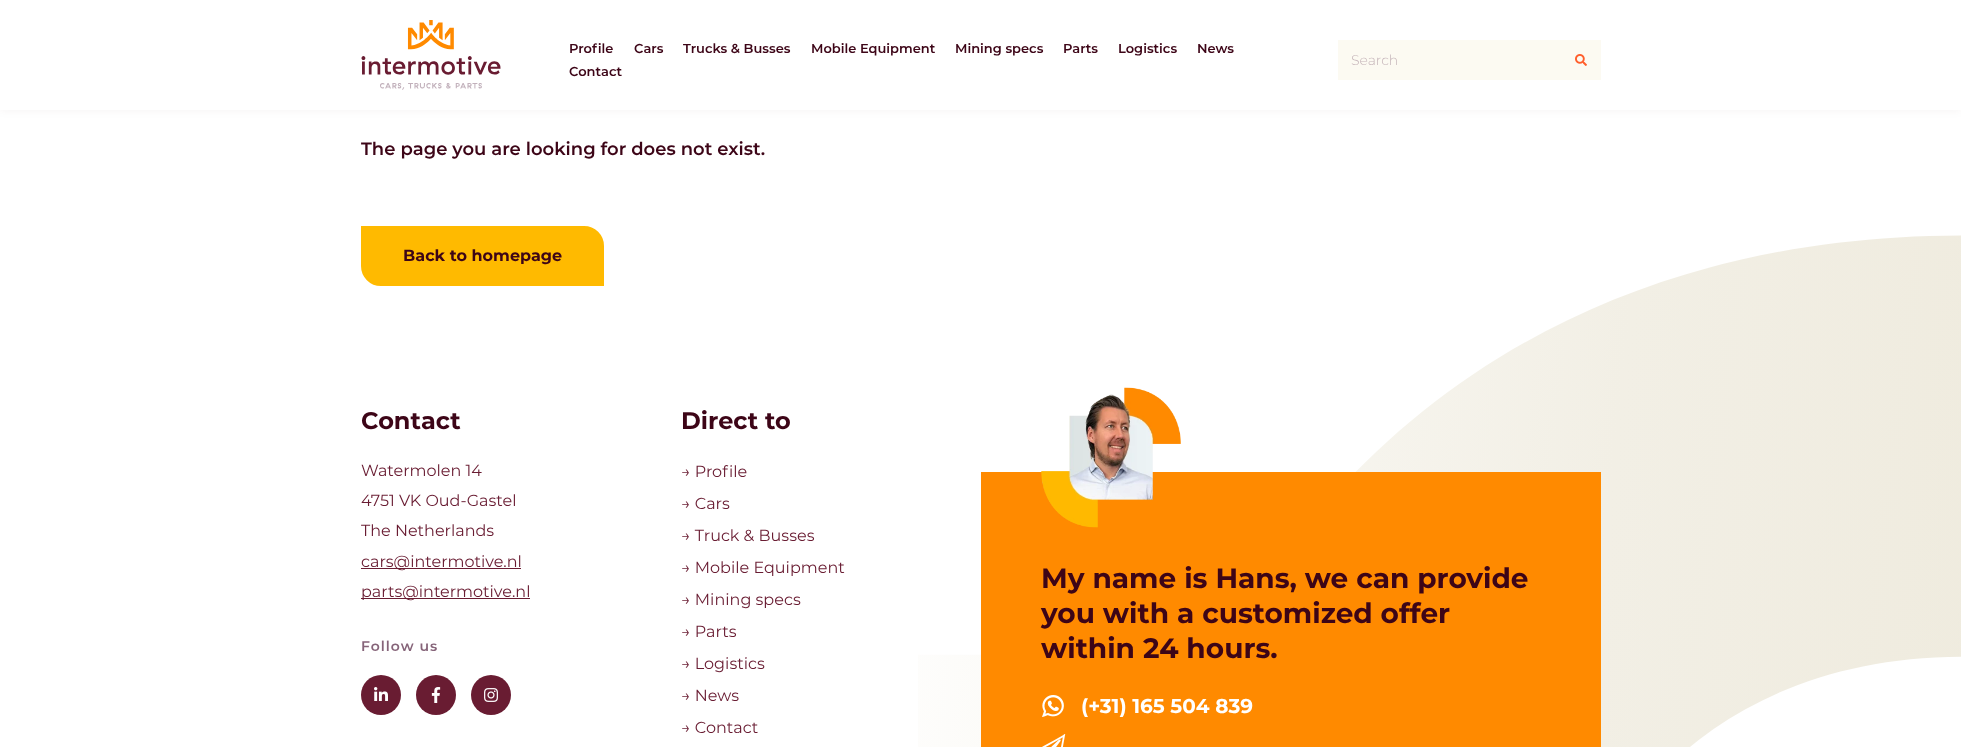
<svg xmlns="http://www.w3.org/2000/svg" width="1961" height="747">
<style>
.a{font:600 13px Montserrat;fill:#3d0517}
.b{font:300 14px Montserrat;fill:#c5b4b9}
.c{font:600 18px Montserrat;fill:#3d0517}
.d{font:bold 16px Montserrat;fill:#3d0517}
.e{font:bold 24px Montserrat;fill:#3d0517}
.f{font:16px Montserrat;fill:#691c32}
.g{font:600 14px Montserrat;letter-spacing:1px;fill:#866479}
.h{font:bold 28px Montserrat;fill:#3d0517}
.i{font:bold 20px Montserrat;fill:#fff}
</style>
<rect width="100%" height="100%" fill="#fff"/>
<image href="1.png" x="918" y="235" width="1043" height="512"/>
<path fill="#3d05170d" filter="blur(5px)" d="M0 0h1961v110H0z"/>
<path fill="#fff" d="M0 0h1961v110H0z"/>
<image href="2.png" x="361" y="20" width="140" height="70"/>
<path fill="#fcfaf2" d="M1338 40h263v40H1338z"/>
<image href="3.png" x="1575" y="54" width="12" height="12"/>
<path fill="#ffba00" stroke="#ffba00" stroke-width="2" d="M362 227h222c10.5 0 19 8.5 19 19v39h-222c-10.5 0-19-8.5-19-19z"/>
<path fill="#691c32" d="M361 568h160v1H361z"/>
<path fill="#691c32" d="M361 598h169v1H361z"/>
<circle fill="#691c32" cx="381" cy="695" r="20"/>
<image href="4.png" x="374" y="687" width="14" height="14"/>
<circle fill="#691c32" cx="436" cy="695" r="20"/>
<image href="5.png" x="431" y="687" width="10" height="16"/>
<circle fill="#691c32" cx="491" cy="695" r="20"/>
<image href="6.png" x="484" y="688" width="14" height="14"/>
<path fill="#ff8a00" d="M981 472h620v275H981z"/>
<image href="7.png" x="1041" y="387" width="140" height="141"/>
<image href="8.png" x="1042" y="695" width="22" height="22"/>
<image href="9.png" x="1042" y="734" width="24" height="13"/>
<text class="a" x="569" y="53">Profile</text>
<text class="a" x="634" y="53">Cars</text>
<text class="a" x="683" y="53">Trucks &amp; Busses</text>
<text class="a" x="811" y="53">Mobile Equipment</text>
<text class="a" x="955" y="53">Mining specs</text>
<text class="a" x="1063" y="53">Parts</text>
<text class="a" x="1118" y="53">Logistics</text>
<text class="a" x="1197" y="53">News</text>
<text class="a" x="569" y="76">Contact</text>
<text class="b" x="1351" y="65">Search</text>
<text class="c" x="361" y="155">The page you are looking for does not exist.</text>
<text class="d" x="403" y="261">Back to homepage</text>
<text class="e" x="361" y="429">Contact</text>
<text class="f" x="361" y="476">Watermolen 14</text>
<text class="f" x="361" y="506">4751 VK Oud-Gastel</text>
<text class="f" x="361" y="536">The Netherlands</text>
<text class="f" x="361" y="567">cars@intermotive.nl</text>
<text class="f" x="361" y="597">parts@intermotive.nl</text>
<text class="g" x="361" y="651">Follow us</text>
<text class="e" x="681" y="429">Direct to</text>
<text class="f" x="681" y="477">→ Profile</text>
<text class="f" x="681" y="509">→ Cars</text>
<text class="f" x="681" y="541">→ Truck &amp; Busses</text>
<text class="f" x="681" y="573">→ Mobile Equipment</text>
<text class="f" x="681" y="605">→ Mining specs</text>
<text class="f" x="681" y="637">→ Parts</text>
<text class="f" x="681" y="669">→ Logistics</text>
<text class="f" x="681" y="701">→ News</text>
<text class="f" x="681" y="733">→ Contact</text>
<text class="h" x="1041" y="588">My name is Hans, we can provide</text>
<text class="h" x="1041" y="623">you with a customized offer</text>
<text class="h" x="1041" y="658">within 24 hours.</text>
<text class="i" x="1081" y="713">(+31) 165 504 839</text>
</svg>
